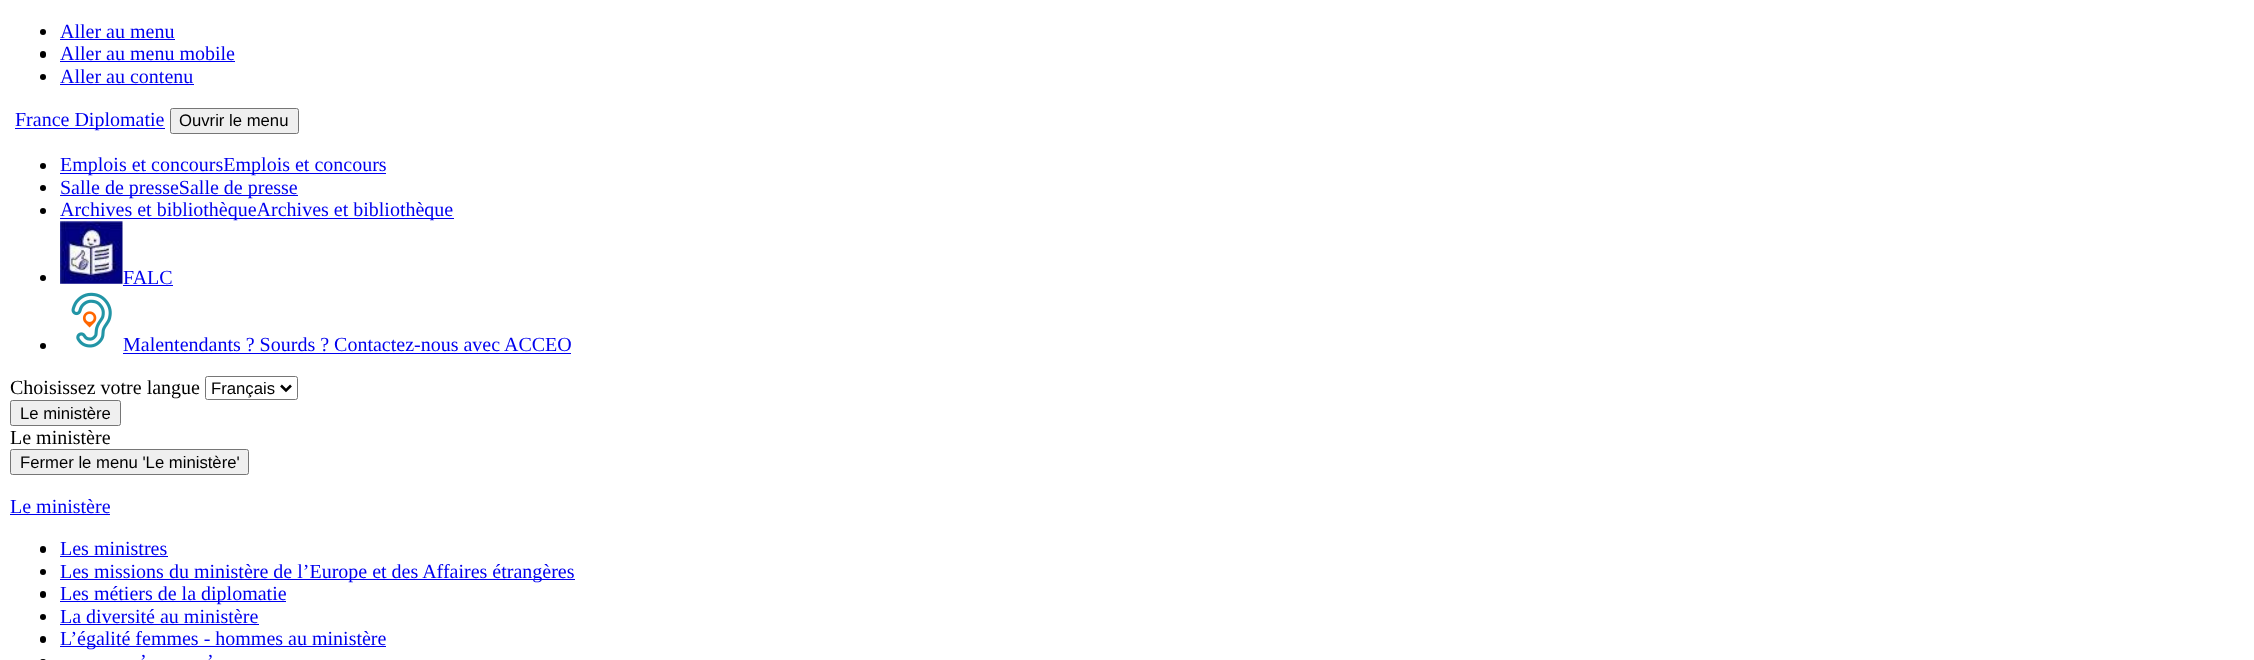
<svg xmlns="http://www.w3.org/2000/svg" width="2254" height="660">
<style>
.a{font:20px Liberation Serif;fill:#00e}
.b{font:16.7px Liberation Sans;fill:#000}
.c{font:20px Liberation Serif;fill:#000}
</style>
<rect width="100%" height="100%" fill="#fff"/>
<circle fill="#000" cx="43" cy="32" r="3"/>
<path fill="#00e" d="M60 39h115v1H60z"/>
<rect fill="#000" x="40" y="51" width="6" height="7" rx="3"/>
<path fill="#00e" d="M60 61h175v1H60z"/>
<circle fill="#000" cx="43" cy="77" r="3"/>
<path fill="#00e" d="M60 84h134v1H60z"/>
<path fill="#00e" d="M15 128h150v1H15z"/>
<rect fill="#efefef" stroke="#767676" x="170.5" y="108.5" width="128" height="25" rx="2"/>
<circle fill="#000" cx="43" cy="166" r="3"/>
<path fill="#00e" d="M60 173h326v1H60z"/>
<circle fill="#000" cx="43" cy="188" r="3"/>
<path fill="#00e" d="M60 195h238v1H60z"/>
<circle fill="#000" cx="43" cy="211" r="3"/>
<path fill="#00e" d="M60 218h394v1H60z"/>
<circle fill="#000" cx="43" cy="278" r="3"/>
<image href="1.png" x="60" y="221" width="63" height="63"/>
<path fill="#00e" d="M123 285h50v1H123z"/>
<circle fill="#000" cx="43" cy="346" r="3"/>
<image href="2.png" x="71" y="292" width="41" height="56"/>
<path fill="#00e" d="M123 353h448v1H123z"/>
<rect fill="none" stroke="#767676" x="205.5" y="376.5" width="92" height="23" rx="2"/>
<path fill="none" stroke="#000" stroke-width="2.5" d="M281 385.5l5 5l5-5"/>
<rect fill="#efefef" stroke="#767676" x="10.5" y="400.5" width="110" height="25" rx="2"/>
<rect fill="#efefef" stroke="#767676" x="10.5" y="449.5" width="238" height="25" rx="2"/>
<path fill="#00e" d="M10 514h100v1H10z"/>
<rect fill="#000" x="40" y="546" width="6" height="7" rx="3"/>
<path fill="#00e" d="M60 556h108v1H60z"/>
<circle fill="#000" cx="43" cy="572" r="3"/>
<path fill="#00e" d="M60 579h515v1H60z"/>
<rect fill="#000" x="40" y="591" width="6" height="7" rx="3"/>
<path fill="#00e" d="M60 601h226v1H60z"/>
<circle fill="#000" cx="43" cy="617" r="3"/>
<path fill="#00e" d="M60 624h199v1H60z"/>
<rect fill="#000" x="40" y="636" width="6" height="7" rx="3"/>
<path fill="#00e" d="M60 646h326v1H60z"/>
<rect fill="#000" x="40" y="659" width="6" height="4" rx="3"/>
<text class="a" x="60" y="38">Aller au menu</text>
<text class="a" x="60" y="60">Aller au menu mobile</text>
<text class="a" x="60" y="83">Aller au contenu</text>
<text class="a" x="15" y="126">France Diplomatie</text>
<text class="b" x="179" y="126">Ouvrir le menu</text>
<text class="a" x="60" y="171">Emplois et concoursEmplois et concours</text>
<text class="a" x="60" y="194">Salle de presseSalle de presse</text>
<text class="a" x="60" y="216">Archives et bibliothèqueArchives et bibliothèque</text>
<text class="a" x="123" y="284">FALC</text>
<text class="a" x="123" y="351">Malentendants ? Sourds ? Contactez-nous avec ACCEO</text>
<text class="c" x="10" y="394">Choisissez votre langue</text>
<text class="b" x="211" y="394">Français</text>
<text class="b" x="20" y="419">Le ministère</text>
<text class="c" x="10" y="444">Le ministère</text>
<text class="b" x="20" y="468">Fermer le menu 'Le ministère'</text>
<text class="a" x="10" y="513">Le ministère</text>
<text class="a" x="60" y="555">Les ministres</text>
<text class="a" x="60" y="578">Les missions du ministère de l’Europe et des Affaires étrangères</text>
<text class="a" x="60" y="600">Les métiers de la diplomatie</text>
<text class="a" x="60" y="623">La diversité au ministère</text>
<text class="a" x="60" y="645">L’égalité femmes - hommes au ministère</text>
<text class="a" x="140" y="668">’</text>
<text class="a" x="207" y="668">’</text>
</svg>
